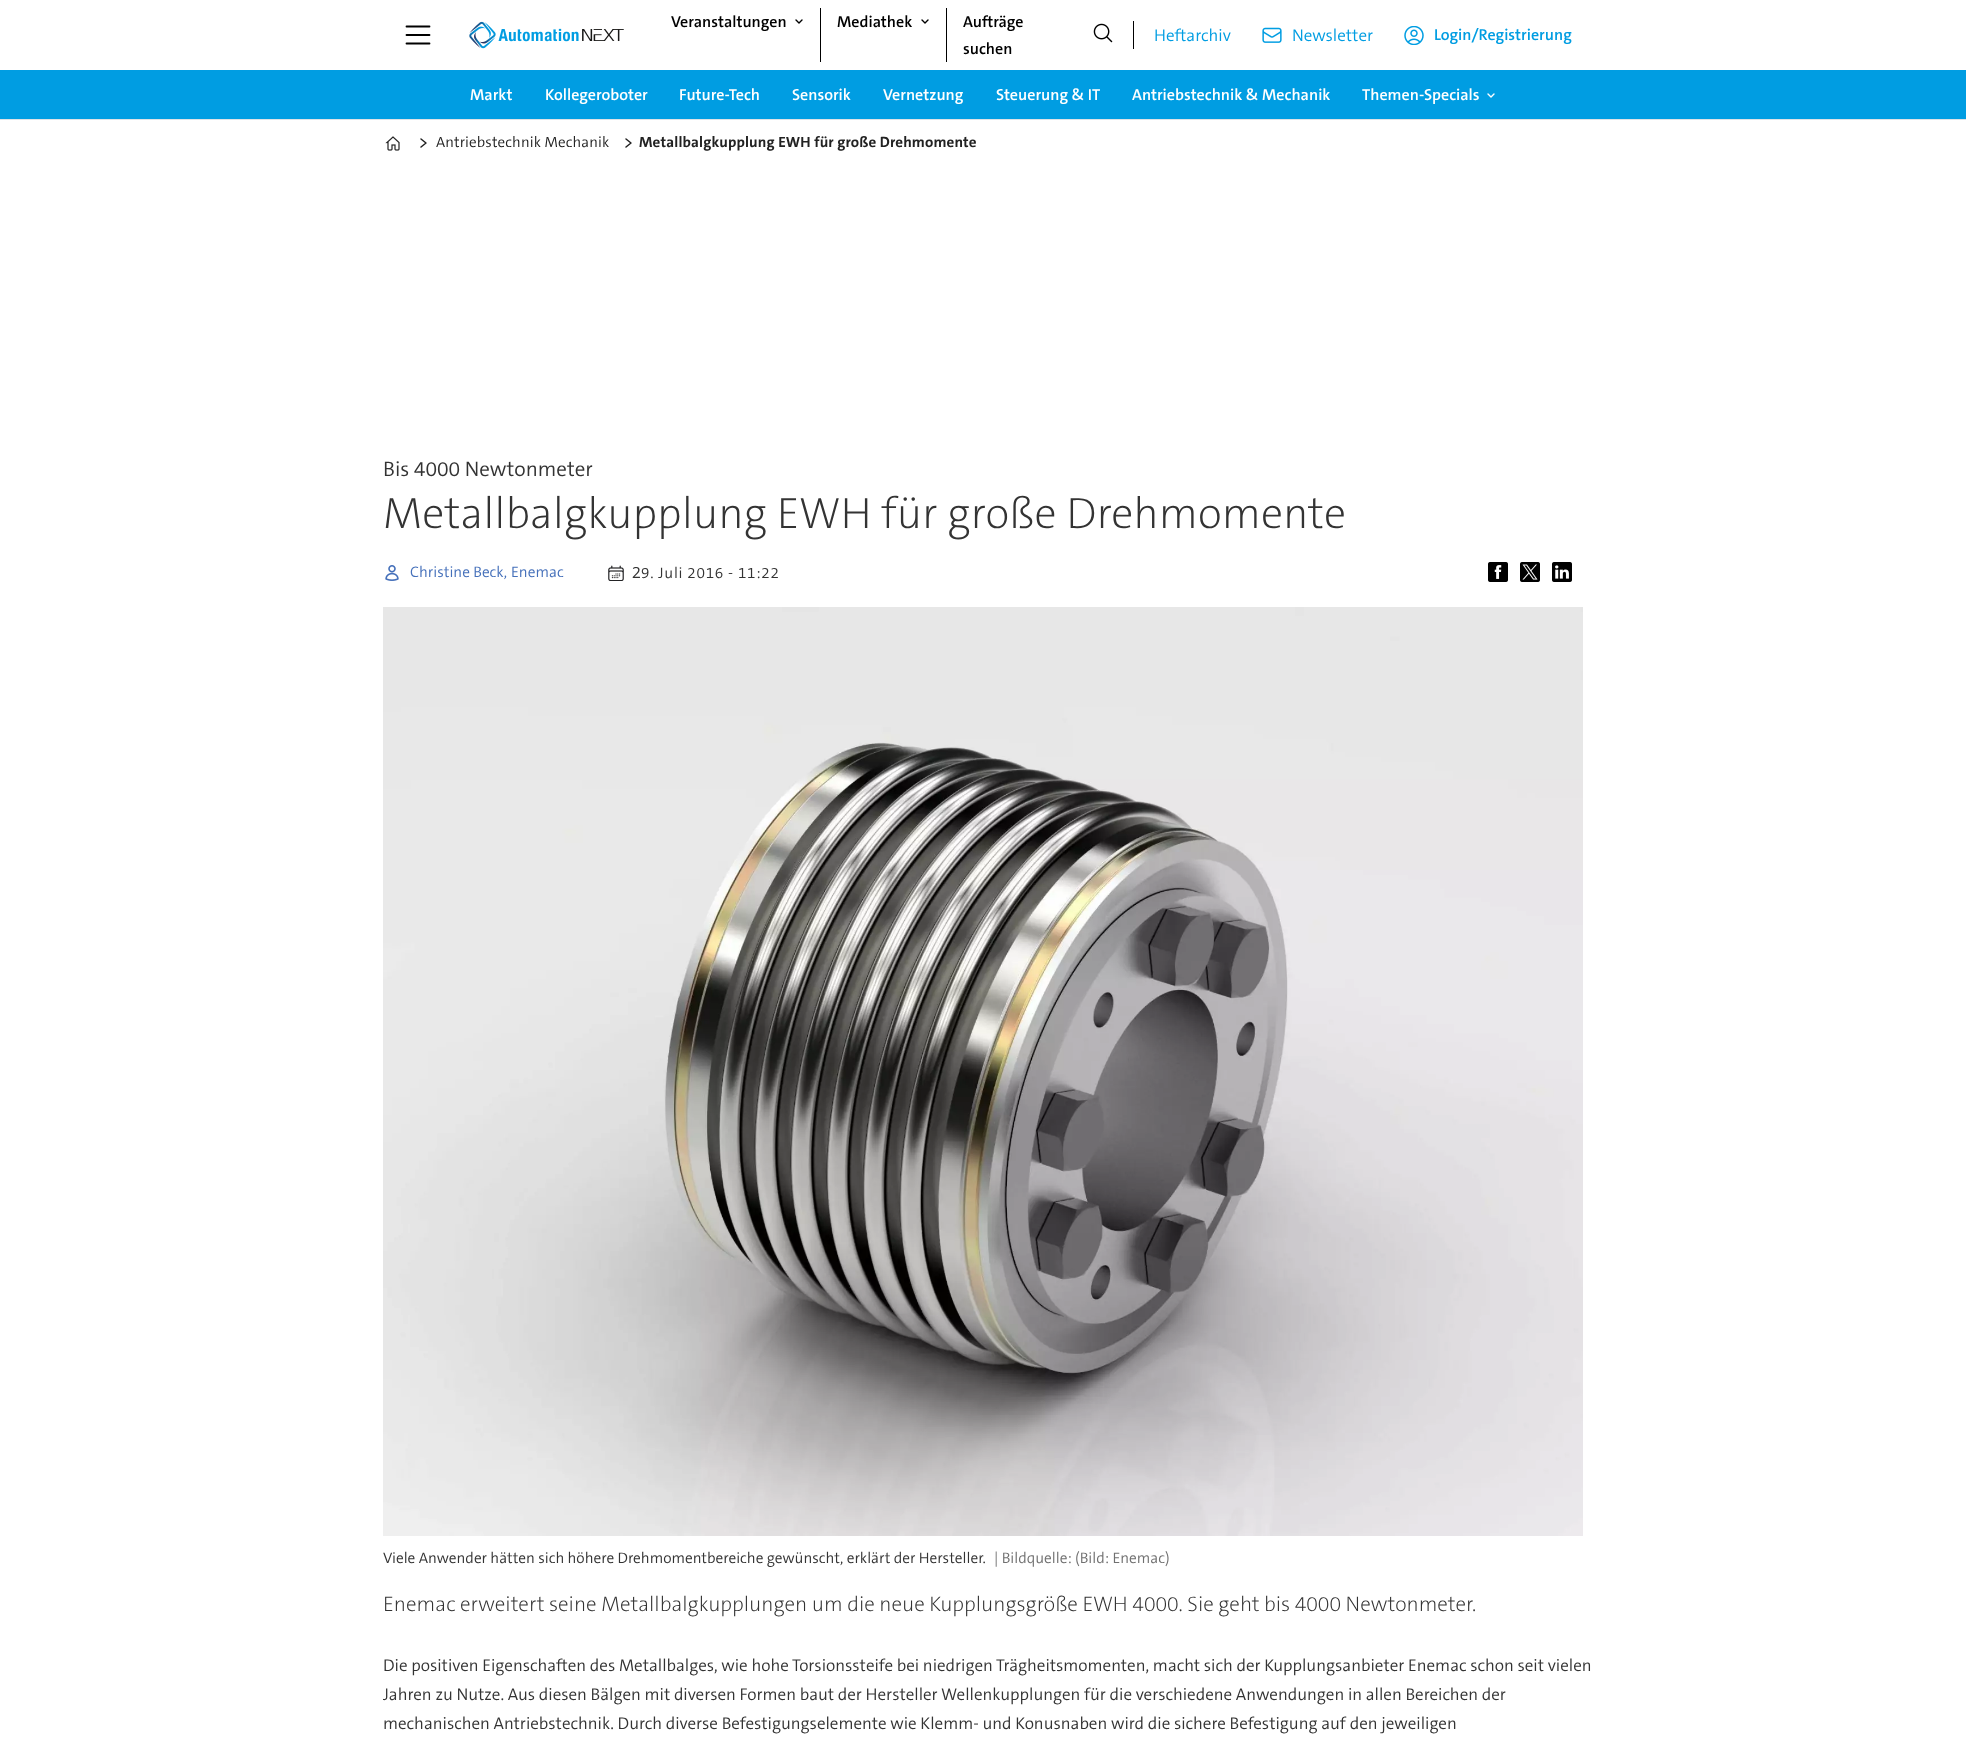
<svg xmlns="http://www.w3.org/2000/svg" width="1966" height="1745">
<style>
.a{font:600 16px 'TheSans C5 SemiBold';fill:#000}
.b{font:300 17px 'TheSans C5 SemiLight';fill:#009de2}
.c{font:600 16px 'TheSans C5 SemiBold';fill:#009de2}
.d{font:600 16px 'TheSans C5 SemiBold';fill:#fff}
.e{font:300 15px 'TheSans C5 SemiLight';letter-spacing:0.15px;fill:#222}
.f{font:bold 15px 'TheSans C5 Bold';letter-spacing:0.15px;fill:#222}
.g{font:300 21px 'TheSans C5 SemiLight';fill:#333}
.h{font:200 44px 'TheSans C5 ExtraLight';fill:#333}
.i{font:300 15.3px 'TheSans C5 SemiLight';fill:#4570ba}
.j{font:15.3px Noto Sans;letter-spacing:0.75px;fill:#333}
.k{font:300 15.3px 'TheSans C5 SemiLight';letter-spacing:0.75px;fill:#333}
.l{font:300 15.3px 'TheSans C5 SemiLight';fill:#333}
.m{font:300 15.3px 'TheSans C5 SemiLight';fill:#707070}
.n{font:200 21px 'TheSans C5 ExtraLight';fill:#333}
.o{font:300 17px 'TheSans C5 SemiLight';fill:#333}
</style>
<rect width="100%" height="100%" fill="#fff"/>
<path fill="none" stroke="#000" stroke-width="1.8" stroke-linecap="round" d="M406.5 26.5h23m-23 8.5h23m-23 8.5h23"/>
<image href="1.png" x="469" y="21" width="155" height="28"/>
<path fill="#000" d="M820 8h1v54H820z"/>
<path fill="none" stroke="#000" stroke-width="1.4" stroke-linecap="round" stroke-linejoin="round" d="M796 20l3 3l3-3"/>
<path fill="#000" d="M946 8h1v54H946z"/>
<path fill="none" stroke="#000" stroke-width="1.4" stroke-linecap="round" stroke-linejoin="round" d="M922 20l3 3l3-3"/>
<image href="2.png" x="1093" y="23" width="20" height="20"/>
<path fill="#000" d="M1133 21h1v28H1133z"/>
<image href="3.png" x="1262" y="27" width="20" height="16"/>
<image href="4.png" x="1404" y="26" width="20" height="19"/>
<path fill="#009de2" d="M0 70h1966v49H0z"/>
<path fill="#dee2e6" d="M0 119h1966v1H0z"/>
<path fill="none" stroke="#fff" stroke-width="1.4" stroke-linecap="round" stroke-linejoin="round" d="M1488 94l3 3l3-3"/>
<image href="5.png" x="385" y="136" width="15" height="15"/>
<path fill="none" stroke="#222" stroke-width="1.5" stroke-linecap="round" stroke-linejoin="round" d="M421 139l5 4l-5 4"/>
<path fill="none" stroke="#222" stroke-width="1.5" stroke-linecap="round" stroke-linejoin="round" d="M626 139l5 4l-5 4"/>
<image href="6.png" x="385" y="565" width="14" height="16"/>
<image href="7.png" x="608" y="565" width="16" height="16"/>
<image href="8.png" x="1488" y="562" width="20" height="20"/>
<image href="9.png" x="1520" y="562" width="20" height="20"/>
<image href="10.png" x="1552" y="562" width="20" height="20"/>
<image href="11.png" x="383" y="607" width="1200" height="929"/>
<text class="a" x="671" y="27">Veranstaltungen</text>
<text class="a" x="837" y="27">Mediathek</text>
<text class="a" x="963" y="27">Aufträge</text>
<text class="a" x="963" y="54">suchen</text>
<text class="b" x="1154" y="41">Heftarchiv</text>
<text class="b" x="1292" y="41">Newsletter</text>
<text class="c" x="1434" y="40">Login/Registrierung</text>
<text class="d" x="470" y="100">Markt</text>
<text class="d" x="545" y="100">Kollegeroboter</text>
<text class="d" x="679" y="100">Future-Tech</text>
<text class="d" x="792" y="100">Sensorik</text>
<text class="d" x="883" y="100">Vernetzung</text>
<text class="d" x="996" y="100">Steuerung &amp; IT</text>
<text class="d" x="1132" y="100">Antriebstechnik &amp; Mechanik</text>
<text class="d" x="1362" y="100">Themen-Specials</text>
<text class="e" x="436" y="147">Antriebstechnik Mechanik</text>
<text class="f" x="639" y="147">Metallbalgkupplung EWH für große Drehmomente</text>
<text class="g" x="383" y="476">Bis 4000 Newtonmeter</text>
<text class="h" x="383" y="528">Metallbalgkupplung EWH für große Drehmomente</text>
<text class="i" x="410" y="577">Christine Beck,</text>
<text class="i" x="511" y="577">Enemac</text>
<text class="j" x="632" y="578">2</text>
<text class="k" x="641" y="578">9. Juli 2016 - 11:22</text>
<text class="l" x="383" y="1563">Viele Anwender hätten sich höhere Drehmomentbereiche gewünscht, erklärt der Hersteller.</text>
<text class="m" x="994" y="1563">| Bildquelle: (Bild: Enemac)</text>
<text class="n" x="383" y="1611">Enemac erweitert seine Metallbalgkupplungen um die neue Kupplungsgröße EWH 4000. Sie geht bis 4000 Newtonmeter.</text>
<text class="o" x="383" y="1671">Die positiven Eigenschaften des Metallbalges, wie hohe Torsionssteife bei niedrigen Trägheitsmomenten, macht sich der Kupplungsanbieter Enemac schon seit vielen</text>
<text class="o" x="383" y="1700">Jahren zu Nutze. Aus diesen Bälgen mit diversen Formen baut der Hersteller Wellenkupplungen für die verschiedene Anwendungen in allen Bereichen der</text>
<text class="o" x="383" y="1729">mechanischen Antriebstechnik. Durch diverse Befestigungselemente wie Klemm- und Konusnaben wird die sichere Befestigung auf den jeweiligen</text>
</svg>
